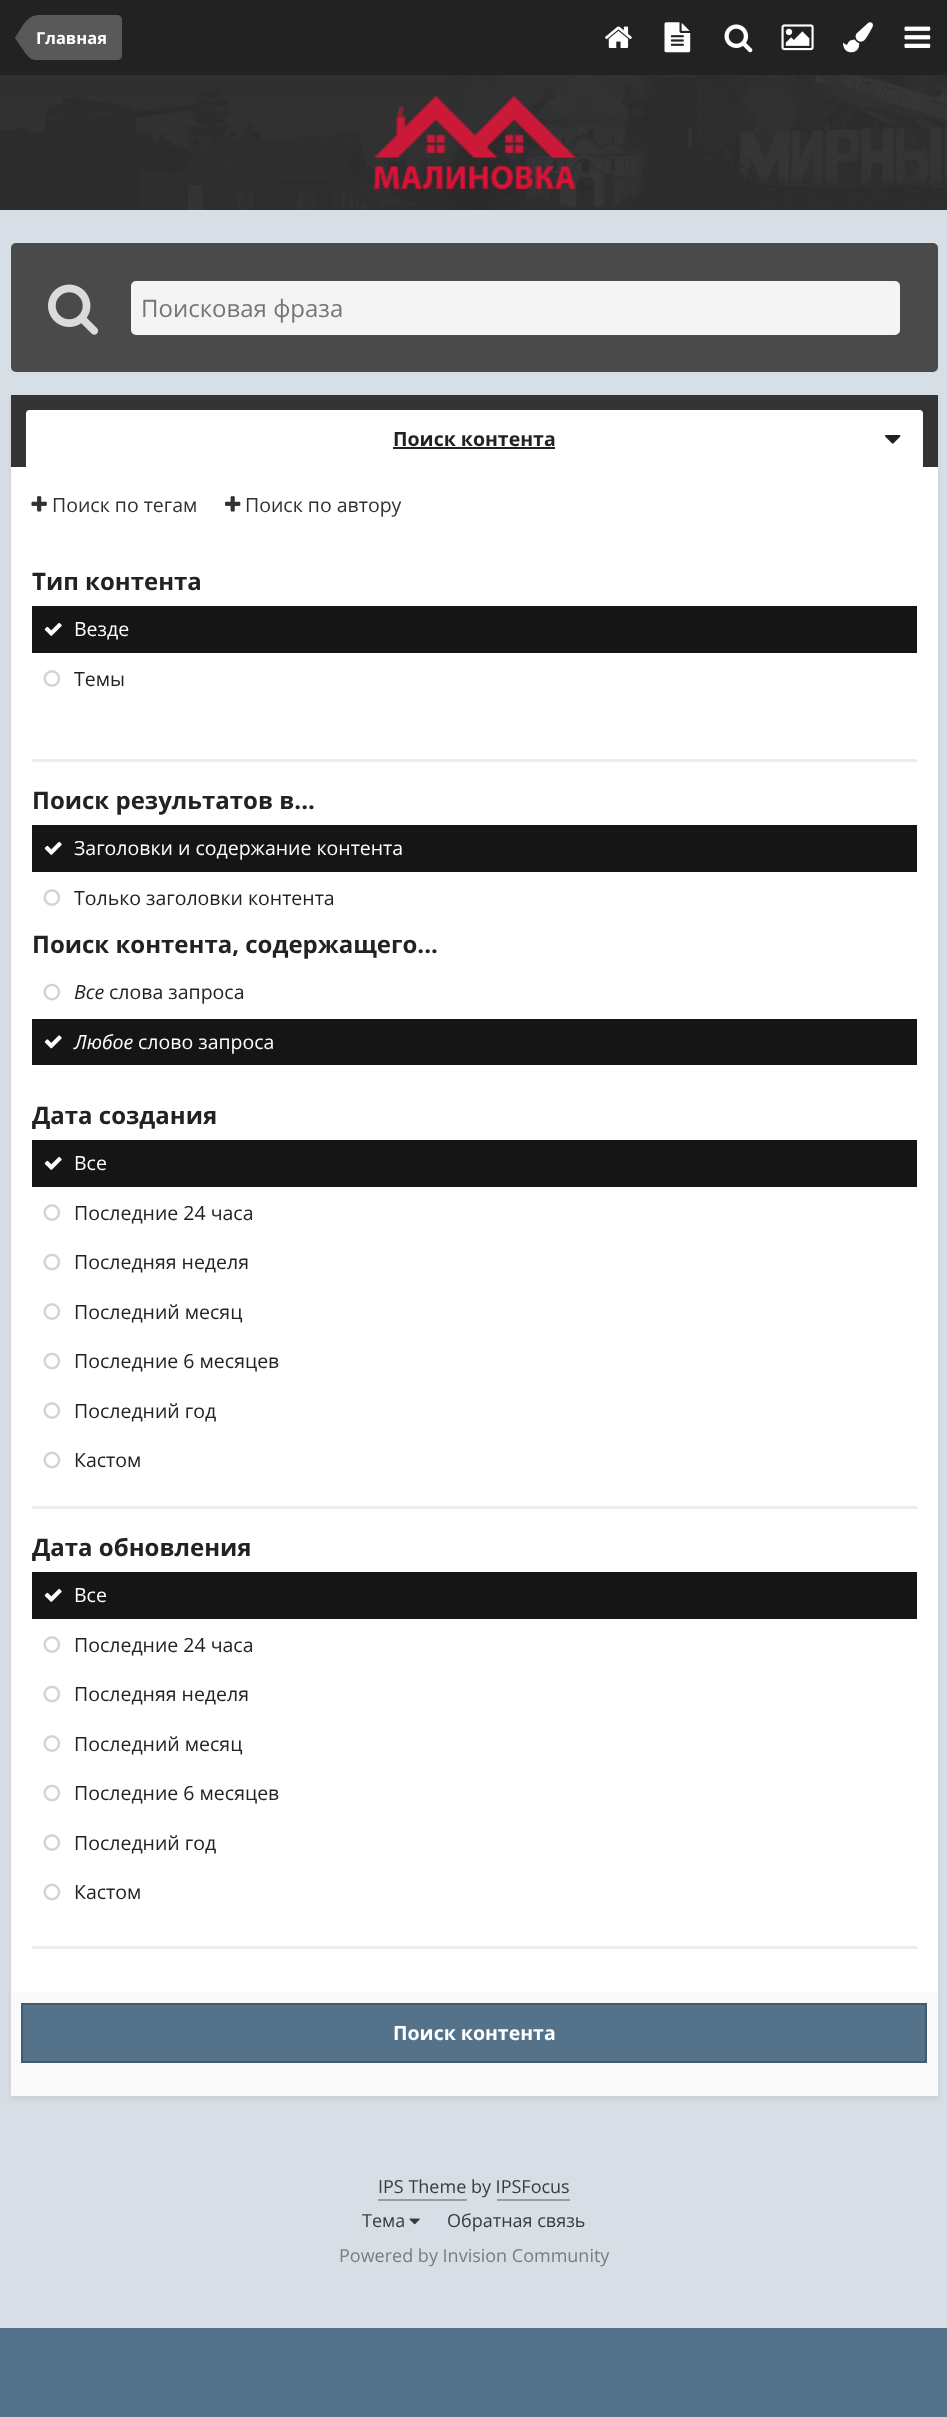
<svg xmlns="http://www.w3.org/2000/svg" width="947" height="2417">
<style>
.a{font:bold 16.5px Open Sans;fill:#fff}
.b{font:24px Open Sans;fill:#757575}
.c{font:bold 19.5px Open Sans;fill:#222}
.d{font:19.5px Open Sans;fill:#313131}
.e{font:bold 24px Open Sans;fill:#222}
.f{font:19.5px Open Sans;fill:#fff}
.g{font:19.5px Open Sans;fill:#222}
.h{font:italic 19.5px Open Sans;fill:#222}
.i{font:italic 19.5px Open Sans;fill:#fff}
.j{font:bold 19.5px Open Sans;fill:#fff}
.k{font:18px Open Sans;fill:#353c41}
.l{font:18px Open Sans;fill:#767d83}
</style>
<rect width="100%" height="100%" fill="#55728b"/>
<path fill="#222" d="M0 0h947v75H0z"/>
<path fill="#595959" d="M36 15h81c3 0 5 2 5 5v35c0 3-2 5-5 5h-81z"/>
<path fill="#595959" d="M15 37.5h21v22.5c-3 0-6.5-1.5-10-6l-11-16z"/>
<path fill="#ffffff40" d="M36 15.5v22h-21l4-6c3.5-6 9.5-16 17-16z"/>
<image href="1.png" x="605" y="26" width="27" height="22"/>
<image href="2.png" x="664" y="22" width="27" height="31"/>
<image href="3.png" x="724" y="24" width="29" height="29"/>
<image href="4.png" x="781" y="24" width="33" height="27"/>
<image href="5.png" x="843" y="22" width="30" height="31"/>
<image href="6.png" x="904" y="26" width="27" height="22"/>
<path fill="#262626" d="M0 75h947v135H0z"/>
<image href="7.png" x="0" y="75" width="947" height="135"/>
<image href="8.png" x="373" y="96" width="203" height="93"/>
<path fill="#d8dee5" d="M0 210h947v2118H0z"/>
<rect fill="#4a4a4a" x="11" y="243" width="927" height="129" rx="5"/>
<image href="9.png" x="48" y="284" width="51" height="51"/>
<rect fill="#fff" x="131" y="281" width="769" height="54" rx="5"/>
<path fill="#2222220d" d="M131 281h769v54H131z"/>
<path fill="#00000012" filter="blur(3px)" d="M11 398h927v1701H11z"/>
<path fill="#fff" d="M11 467h927v1525H11z"/>
<path fill="#333" d="M11 395h927v72H11z"/>
<path fill="#fff" d="M29 410h891c1.5 0 3 1.5 3 3v54h-897v-54c0-1.5 1.5-3 3-3z"/>
<path fill="#222" d="M393 447h162v2H393z"/>
<image href="10.png" x="885" y="435" width="16" height="9"/>
<image href="11.png" x="31" y="496" width="16" height="16"/>
<image href="12.png" x="225" y="496" width="16" height="16"/>
<path fill="#151515" d="M32 606h885v47H32z"/>
<image href="13.png" x="44" y="622" width="18" height="14"/>
<image href="14.png" x="43" y="670" width="18" height="17"/>
<path fill="#ededed" d="M32 759h885v3H32z"/>
<path fill="#151515" d="M32 825h885v47H32z"/>
<image href="13.png" x="44" y="841" width="18" height="14"/>
<image href="14.png" x="43" y="889" width="18" height="17"/>
<image href="15.png" x="43" y="983" width="18" height="18"/>
<path fill="#151515" d="M32 1019h885v46H32z"/>
<image href="16.png" x="44" y="1035" width="18" height="14"/>
<path fill="#151515" d="M32 1140h885v47H32z"/>
<image href="13.png" x="44" y="1156" width="18" height="14"/>
<image href="14.png" x="43" y="1204" width="18" height="17"/>
<image href="15.png" x="43" y="1253" width="18" height="18"/>
<image href="14.png" x="43" y="1303" width="18" height="17"/>
<image href="15.png" x="43" y="1352" width="18" height="18"/>
<image href="14.png" x="43" y="1402" width="18" height="17"/>
<image href="15.png" x="43" y="1451" width="18" height="18"/>
<path fill="#ededed" d="M32 1506h885v3H32z"/>
<path fill="#151515" d="M32 1572h885v47H32z"/>
<image href="13.png" x="44" y="1588" width="18" height="14"/>
<image href="14.png" x="43" y="1636" width="18" height="17"/>
<image href="15.png" x="43" y="1685" width="18" height="18"/>
<image href="14.png" x="43" y="1735" width="18" height="17"/>
<image href="15.png" x="43" y="1784" width="18" height="18"/>
<image href="14.png" x="43" y="1834" width="18" height="17"/>
<image href="15.png" x="43" y="1883" width="18" height="18"/>
<path fill="#ededed" d="M32 1946h885v3H32z"/>
<path fill="#fafafa" d="M11 1992h927v104H11z"/>
<path fill="#55728b" d="M23 2005h902v56H23z"/>
<path fill="none" stroke="#445b6f" stroke-width="2" d="M22 2004h904v58H22z"/>
<path fill="#979da3" d="M378 2199h89v2H378z"/>
<path fill="#979da3" d="M497 2199h73v2H497z"/>
<image href="17.png" x="409" y="2218" width="11" height="7"/>
<text class="a" x="36" y="44">Главная</text>
<text class="b" x="141" y="317">Поисковая фраза</text>
<text class="c" x="393" y="446">Поиск контента</text>
<text class="d" x="52" y="512">Поиск по тегам</text>
<text class="d" x="245" y="512">Поиск по автору</text>
<text class="e" x="32" y="590">Тип контента</text>
<text class="f" x="74" y="636">Везде</text>
<text class="g" x="74" y="686">Темы</text>
<text class="e" x="32" y="809">Поиск результатов в...</text>
<text class="f" x="74" y="855">Заголовки и содержание контента</text>
<text class="g" x="74" y="905">Только заголовки контента</text>
<text class="e" x="32" y="953">Поиск контента, содержащего...</text>
<text class="h" x="74" y="999">Все</text>
<text class="g" x="109" y="999">слова запроса</text>
<text class="i" x="74" y="1049">Любое</text>
<text class="f" x="138" y="1049">слово запроса</text>
<text class="e" x="32" y="1124">Дата создания</text>
<text class="f" x="74" y="1170">Все</text>
<text class="g" x="74" y="1220">Последние 24 часа</text>
<text class="g" x="74" y="1269">Последняя неделя</text>
<text class="g" x="74" y="1319">Последний месяц</text>
<text class="g" x="74" y="1368">Последние 6 месяцев</text>
<text class="g" x="74" y="1418">Последний год</text>
<text class="g" x="74" y="1467">Кастом</text>
<text class="e" x="32" y="1556">Дата обновления</text>
<text class="f" x="74" y="1602">Все</text>
<text class="g" x="74" y="1652">Последние 24 часа</text>
<text class="g" x="74" y="1701">Последняя неделя</text>
<text class="g" x="74" y="1751">Последний месяц</text>
<text class="g" x="74" y="1800">Последние 6 месяцев</text>
<text class="g" x="74" y="1850">Последний год</text>
<text class="g" x="74" y="1899">Кастом</text>
<text class="j" x="393" y="2040">Поиск контента</text>
<text class="k" x="378" y="2193">IPS Theme by IPSFocus</text>
<text class="k" x="362" y="2227">Тема</text>
<text class="k" x="447" y="2227">Обратная связь</text>
<text class="l" x="339" y="2262">Powered by Invision Community</text>
</svg>
